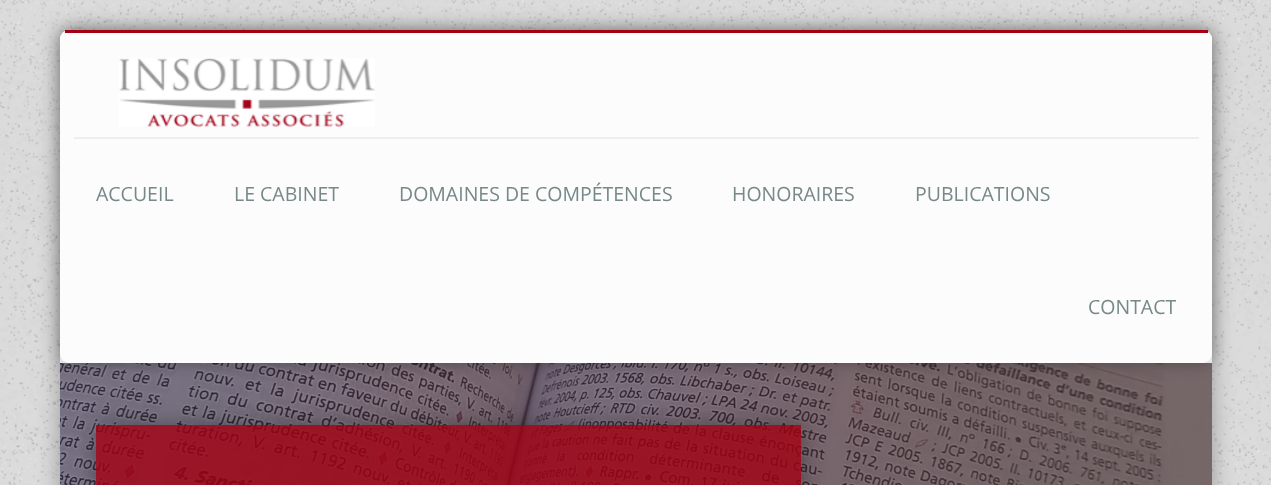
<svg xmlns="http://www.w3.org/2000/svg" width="1271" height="485">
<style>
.a{font:19.5px Open Sans;fill:#788}
</style>
<defs>
<clipPath id="clip1"><path d="M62 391h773v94h-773zm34 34h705v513h-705z" clip-rule="evenodd"/></clipPath>
</defs>
<rect width="100%" height="100%" fill="#fff"/>
<image href="1.png" x="0" y="0" width="1271" height="485"/>
<rect fill="#0000004d" filter="blur(11px)" x="60" y="30" width="1152" height="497" rx="9"/>
<rect fill="#fcfcfc" x="60" y="30" width="1152" height="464" rx="9"/>
<image href="3.png" x="60" y="363" width="1152" height="122"/>
<rect fill="#0000004d" filter="blur(7.5px)" x="60" y="30" width="1152" height="333" rx="9"/>
<rect fill="#fcfcfc" x="60" y="30" width="1152" height="333" rx="9"/>
<path fill="#a30012" d="M65 30h1143v3H65z"/>
<image href="2.png" x="119" y="58" width="256" height="69"/>
<path fill="#eee" d="M74 137h1125v2H74z"/>
<g clip-path="url(#clip1)">
<path fill="#14141466" filter="blur(11px)" d="M96 425h705v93H96z"/>
</g>
<path fill="#a30012cc" d="M96 425h705v60H96z"/>
<text class="a" x="96" y="201">ACCUEIL</text>
<text class="a" x="234" y="201">LE CABINET</text>
<text class="a" x="399" y="201">DOMAINES DE COMPÉTENCES</text>
<text class="a" x="732" y="201">HONORAIRES</text>
<text class="a" x="915" y="201">PUBLICATIONS</text>
<text class="a" x="1088" y="314">CONTACT</text>
</svg>
